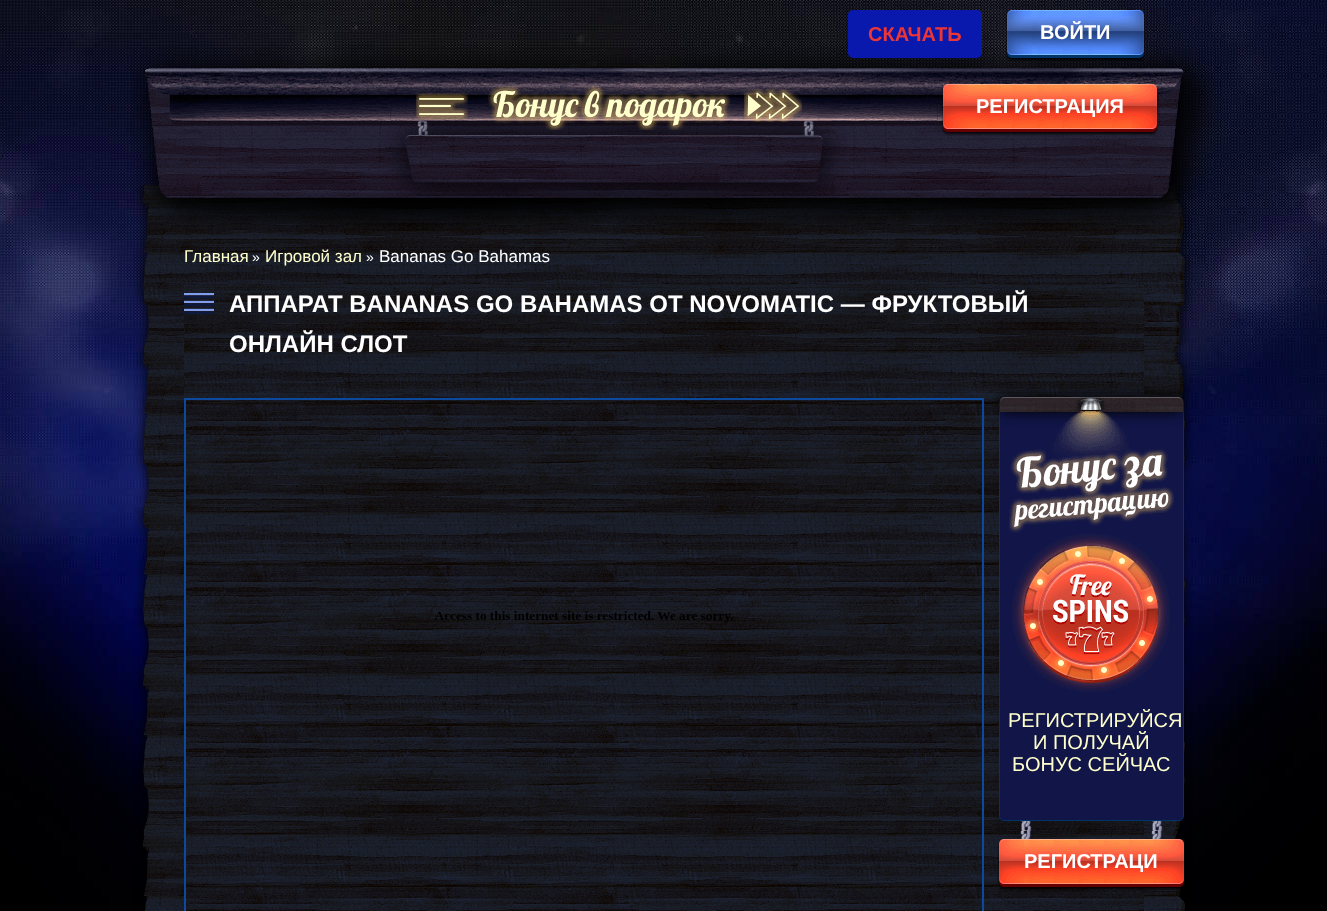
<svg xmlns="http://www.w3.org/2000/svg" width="1327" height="911">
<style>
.a{font:bold 20px Liberation Sans;fill:#ec3636}
.b{font:bold 20px Liberation Sans;fill:#fff}
.c{font:17px Liberation Sans;fill:#ffc}
.d{font:14px Liberation Sans;fill:#fff}
.e{font:17px Liberation Sans;fill:#fff}
.f{font:bold 24px Liberation Sans;fill:#fff}
.g{font:20px Liberation Sans;fill:#ffc}
</style>
<rect width="100%" height="100%" fill="#fff"/>
<image href="1.png" x="0" y="0" width="1327" height="911"/>
<image href="12.png" x="133" y="185" width="1060" height="726"/>
<image href="5.png" x="131" y="46" width="1092" height="184"/>
<rect fill="#0918ad" x="848" y="10" width="134" height="48" rx="5"/>
<rect fill="#000000cc" filter="blur(1px)" x="1007" y="12" width="137" height="48" rx="5"/>
<image href="2.png" x="1032" y="10" width="87" height="48"/>
<image href="3.png" x="1007" y="10" width="25" height="48"/>
<image href="4.png" x="1119" y="10" width="25" height="48"/>
<image href="6.png" x="488" y="86" width="242" height="44"/>
<image href="7.png" x="416" y="93" width="52" height="27"/>
<image href="8.png" x="744" y="89" width="58" height="33"/>
<rect fill="#000000cc" filter="blur(1px)" x="943" y="86" width="214" height="48" rx="5"/>
<image href="9.png" x="968" y="84" width="164" height="48"/>
<image href="10.png" x="943" y="84" width="25" height="48"/>
<image href="11.png" x="1132" y="84" width="25" height="48"/>
<image href="13.png" x="184" y="284" width="960" height="627"/>
<image href="14.png" x="184" y="293" width="30" height="21"/>
<rect fill="#111547" stroke="#036" x="999.5" y="398.5" width="184" height="422" rx="4.5"/>
<rect fill="#000" filter="blur(6.5px)" x="1000" y="397" width="183" height="15" rx="5"/>
<path fill="none" stroke="#0c499c" stroke-width="2" d="M185 399h798v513H185z"/>
<image href="15.png" x="434" y="611" width="299" height="12"/>
<image href="16.png" x="1000" y="397" width="183" height="15"/>
<path fill="#60585d" d="M1005 398h173c3 0 5 2 5 5c0-3-1-5-4-6h-174c-4 0-5 3-5 6c0-3 2-5 5-5z"/>
<image href="18.png" x="1009" y="449" width="165" height="245"/>
<image href="17.png" x="1052" y="397" width="79" height="61"/>
<image href="19.png" x="1020" y="821" width="143" height="18"/>
<rect fill="#000000cc" filter="blur(1px)" x="999" y="841" width="185" height="48" rx="5"/>
<image href="20.png" x="1024" y="839" width="135" height="48"/>
<image href="21.png" x="999" y="839" width="25" height="48"/>
<image href="22.png" x="1159" y="839" width="25" height="48"/>
<text class="a" x="868" y="41">СКАЧАТЬ</text>
<text class="b" x="1040" y="39">ВОЙТИ</text>
<text class="b" x="976" y="113">РЕГИСТРАЦИЯ</text>
<text class="c" x="184" y="262">Главная</text>
<text class="d" x="252" y="262">»</text>
<text class="c" x="265" y="262">Игровой зал</text>
<text class="d" x="366" y="262">»</text>
<text class="e" x="379" y="262">Bananas Go Bahamas</text>
<text class="f" x="229" y="312">АППАРАТ BANANAS GO BAHAMAS ОТ NOVOMATIC — ФРУКТОВЫЙ</text>
<text class="f" x="229" y="352">ОНЛАЙН СЛОТ</text>
<text class="g" x="1008" y="727">РЕГИСТРИРУЙСЯ</text>
<text class="g" x="1033" y="749">И ПОЛУЧАЙ</text>
<text class="g" x="1012" y="771">БОНУС СЕЙЧАС</text>
<text class="b" x="1024" y="868">РЕГИСТРАЦИ</text>
</svg>
